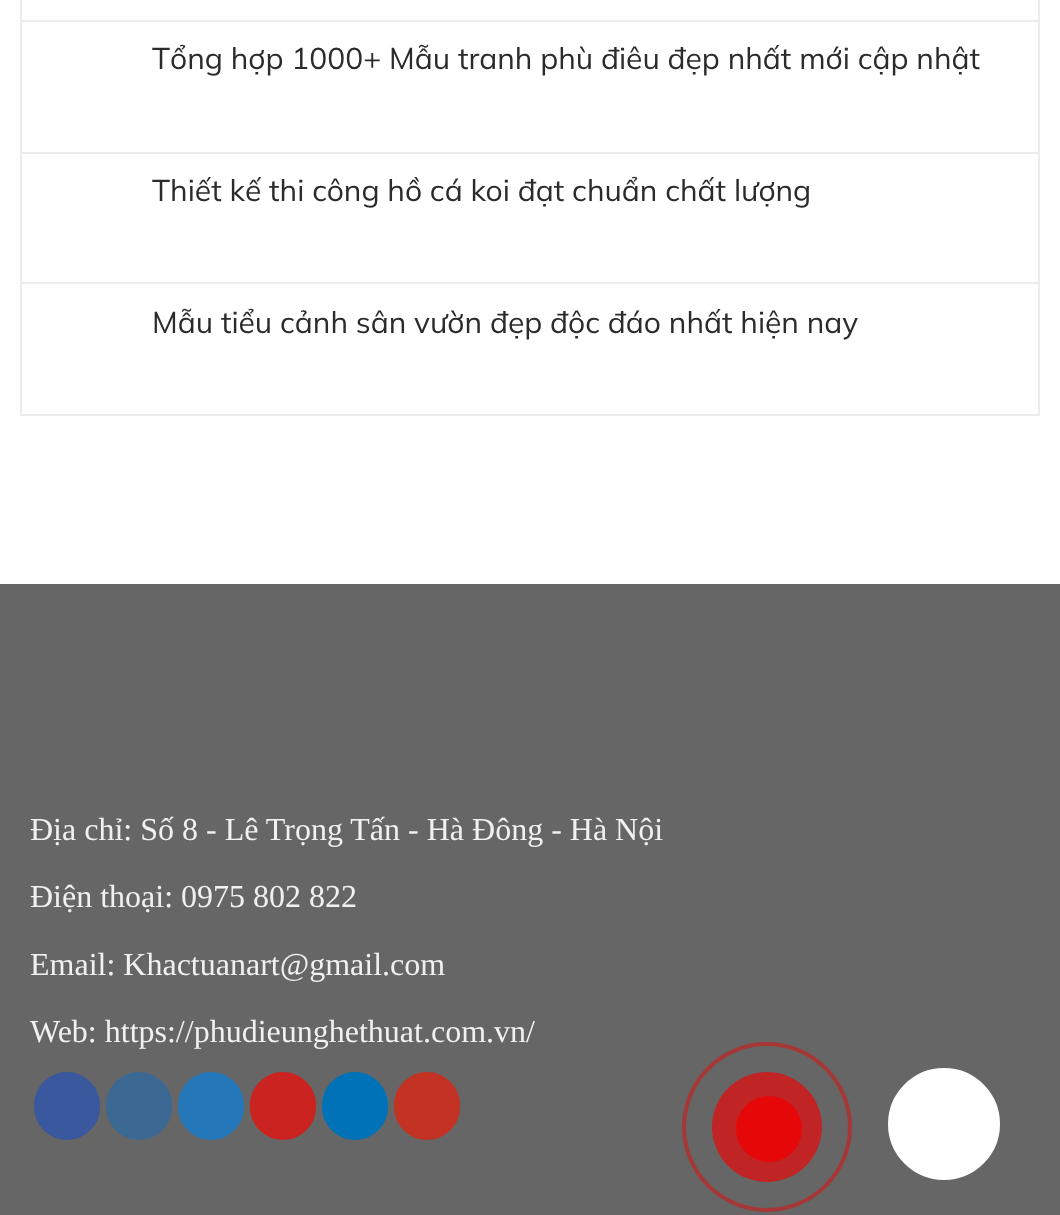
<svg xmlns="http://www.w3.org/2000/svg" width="1060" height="1215">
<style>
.a{font:30px Mulish;fill:#2b2b2b}
.b{font:32px Liberation Serif;fill:#f1f1f1}
</style>
<rect width="100%" height="100%" fill="#fff"/>
<path fill="none" stroke="#ececec" stroke-width="2" d="M21 -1h1018v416H21z"/>
<path fill="#ececec" d="M22 20h1016v2H22z"/>
<path fill="#ececec" d="M22 152h1016v2H22z"/>
<path fill="#ececec" d="M22 282h1016v2H22z"/>
<path fill="#666" d="M0 584h1060v631H0z"/>
<rect fill="#3a589d" stroke="#3a589d" stroke-width="2" x="35" y="1073" width="64" height="66" rx="32"/>
<rect fill="#3b6994" stroke="#3b6994" stroke-width="2" x="107" y="1073" width="64" height="66" rx="32"/>
<rect fill="#2478ba" stroke="#2478ba" stroke-width="2" x="179" y="1073" width="64" height="66" rx="32"/>
<rect fill="#cb2320" stroke="#cb2320" stroke-width="2" x="251" y="1073" width="64" height="66" rx="32"/>
<rect fill="#0072b7" stroke="#0072b7" stroke-width="2" x="323" y="1073" width="64" height="66" rx="32"/>
<rect fill="#c33223" stroke="#c33223" stroke-width="2" x="395" y="1073" width="64" height="66" rx="32"/>
<circle fill="none" stroke="#a63737" stroke-width="4" cx="767" cy="1127" r="83"/>
<circle fill="#c02424" cx="767" cy="1127" r="55"/>
<circle fill="#e60808" cx="769" cy="1129" r="33"/>
<circle fill="#fff" stroke="#fff" stroke-width="10" cx="944" cy="1124" r="51"/>
<text class="a" x="152" y="69">Tổng hợp 1000+ Mẫu tranh phù điêu đẹp nhất mới cập nhật</text>
<text class="a" x="152" y="201">Thiết kế thi công hồ cá koi đạt chuẩn chất lượng</text>
<text class="a" x="152" y="333">Mẫu tiểu cảnh sân vườn đẹp độc đáo nhất hiện nay</text>
<text class="b" x="30" y="840">Địa chỉ: Số 8 - Lê Trọng Tấn - Hà Đông - Hà Nội</text>
<text class="b" x="30" y="907">Điện thoại: 0975 802 822</text>
<text class="b" x="30" y="975">Email: Khactuanart@gmail.com</text>
<text class="b" x="30" y="1042">Web: https://phudieunghethuat.com.vn/</text>
</svg>
